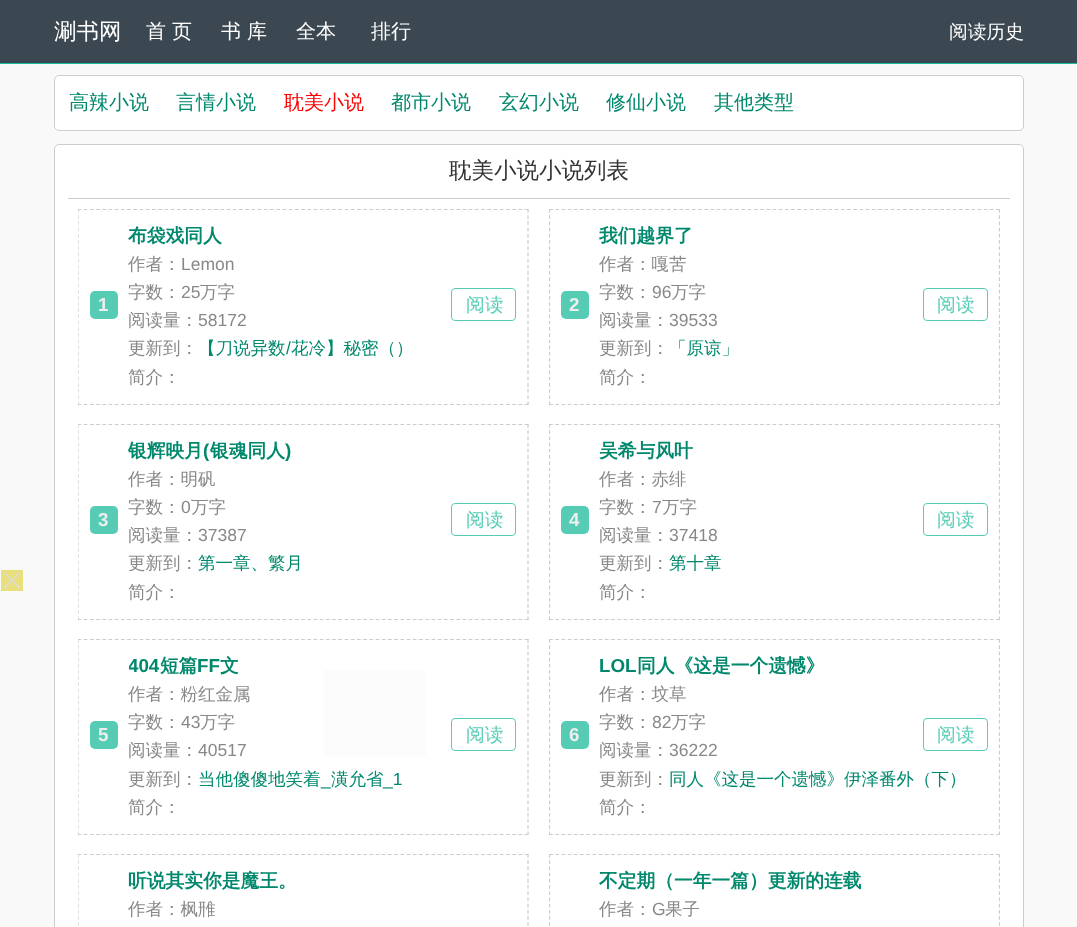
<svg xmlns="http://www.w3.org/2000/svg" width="1077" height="927">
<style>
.a{font:500 22.5px WenQuanYi Zen Hei;fill:#fff}
.b{font:500 20px WenQuanYi Zen Hei;fill:#fff}
.c{font:500 18.75px WenQuanYi Zen Hei;fill:#fff}
.d{font:500 20px WenQuanYi Zen Hei;fill:#00886d}
.e{font:500 20px WenQuanYi Zen Hei;fill:#f00}
.f{font:500 22.5px WenQuanYi Zen Hei;fill:#333}
.g{font:bold 18.75px Liberation Sans;fill:#eee}
.h{font:bold 18.75px WenQuanYi Zen Hei;fill:#00886d}
.i{font:500 17.5px WenQuanYi Zen Hei;fill:#888}
.j{font:17.5px Liberation Sans;fill:#888}
.k{font:500 17.5px WenQuanYi Zen Hei;fill:#00886d}
.l{font:17.5px Liberation Sans;fill:#00886d}
.m{font:500 18.75px WenQuanYi Zen Hei;fill:#56ccb5}
.n{font:bold 18.75px Liberation Sans;fill:#00886d}
</style>
<defs>
<clipPath id="clip1"><path d="M78 209h451v196H78z"/></clipPath>
<clipPath id="clip2"><path d="M549 209h451v196H549z"/></clipPath>
<clipPath id="clip3"><path d="M78 424h451v196H78z"/></clipPath>
<clipPath id="clip4"><path d="M549 424h451v196H549z"/></clipPath>
<clipPath id="clip5"><path d="M78 639h451v196H78z"/></clipPath>
<clipPath id="clip6"><path d="M549 639h451v196H549z"/></clipPath>
<clipPath id="clip7"><path d="M78 854h451v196H78z"/></clipPath>
<clipPath id="clip8"><path d="M549 854h451v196H549z"/></clipPath>
<clipPath id="clip9"><path d="M129 653h386v27H129z"/></clipPath>
</defs>
<rect width="100%" height="100%" fill="#f9f9f9"/>
<path fill="#1abc9c" filter="blur(0.5px)" d="M0 1h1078v63H0z"/>
<path fill="#3b4852" d="M0 0h1077v63H0z"/>
<path fill="#eadf7d" d="M1 570h22v21H1z"/>
<path fill="#ddd" d="M5 572.5l15 15l-1 1l-15-15z"/>
<path fill="#ddd" d="M4 587.5l15-15l1 1l-15 15z"/>
<rect fill="#fff" stroke="#ccc" x="54.5" y="75.5" width="969" height="55" rx="4.5"/>
<rect fill="#fff" stroke="#ccc" x="54.5" y="144.5" width="969" height="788" rx="4.5"/>
<path fill="#ccc" d="M68 198h942v1H68z"/>
<g clip-path="url(#clip1)">
<path fill="none" stroke="#ccc" stroke-width="1.2" stroke-dasharray="3.75 2.46" d="M77.5 209.5h451.5"/>
</g>
<path fill="none" stroke="#ccc" stroke-width="1.2" stroke-dasharray="3.75 2.46" d="M528 209v196"/>
<g clip-path="url(#clip1)">
<path fill="none" stroke="#ccc" stroke-width="1.2" stroke-dasharray="3.75 2.46" d="M77.5 404.5h451.5"/>
<path fill="none" stroke="#ccc" stroke-width="1.2" stroke-dasharray="3.75 2.46" d="M78 209v196"/>
</g>
<rect fill="#56ccb5" x="90" y="291" width="28" height="28" rx="5"/>
<rect fill="none" stroke="#56ccb5" x="451.5" y="288.5" width="64" height="32" rx="3.5"/>
<g clip-path="url(#clip2)">
<path fill="none" stroke="#ccc" stroke-width="1.2" stroke-dasharray="3.75 2.46" d="M549 209.5h451"/>
<path fill="none" stroke="#ccc" stroke-width="1.2" stroke-dasharray="3.75 2.46" d="M999.5 209v196"/>
<path fill="none" stroke="#ccc" stroke-width="1.2" stroke-dasharray="3.75 2.46" d="M549 404.5h451"/>
<path fill="none" stroke="#ccc" stroke-width="1.2" stroke-dasharray="3.75 2.46" d="M549.5 209v196"/>
</g>
<rect fill="#56ccb5" x="561" y="291" width="28" height="28" rx="5"/>
<rect fill="none" stroke="#56ccb5" x="923.5" y="288.5" width="64" height="32" rx="3.5"/>
<g clip-path="url(#clip3)">
<path fill="none" stroke="#ccc" stroke-width="1.2" stroke-dasharray="3.75 2.46" d="M77.5 424.5h451.5"/>
</g>
<path fill="none" stroke="#ccc" stroke-width="1.2" stroke-dasharray="3.75 2.46" d="M528 424v196"/>
<g clip-path="url(#clip3)">
<path fill="none" stroke="#ccc" stroke-width="1.2" stroke-dasharray="3.75 2.46" d="M77.5 619.5h451.5"/>
<path fill="none" stroke="#ccc" stroke-width="1.2" stroke-dasharray="3.75 2.46" d="M78 424v196"/>
</g>
<rect fill="#56ccb5" x="90" y="506" width="28" height="28" rx="5"/>
<rect fill="none" stroke="#56ccb5" x="451.5" y="503.5" width="64" height="32" rx="3.5"/>
<g clip-path="url(#clip4)">
<path fill="none" stroke="#ccc" stroke-width="1.2" stroke-dasharray="3.75 2.46" d="M549 424.5h451"/>
<path fill="none" stroke="#ccc" stroke-width="1.2" stroke-dasharray="3.75 2.46" d="M999.5 424v196"/>
<path fill="none" stroke="#ccc" stroke-width="1.2" stroke-dasharray="3.75 2.46" d="M549 619.5h451"/>
<path fill="none" stroke="#ccc" stroke-width="1.2" stroke-dasharray="3.75 2.46" d="M549.5 424v196"/>
</g>
<rect fill="#56ccb5" x="561" y="506" width="28" height="28" rx="5"/>
<rect fill="none" stroke="#56ccb5" x="923.5" y="503.5" width="64" height="32" rx="3.5"/>
<g clip-path="url(#clip5)">
<path fill="none" stroke="#ccc" stroke-width="1.2" stroke-dasharray="3.75 2.46" d="M77.5 639.5h451.5"/>
</g>
<path fill="none" stroke="#ccc" stroke-width="1.2" stroke-dasharray="3.75 2.46" d="M528 639v196"/>
<g clip-path="url(#clip5)">
<path fill="none" stroke="#ccc" stroke-width="1.2" stroke-dasharray="3.75 2.46" d="M77.5 834.5h451.5"/>
<path fill="none" stroke="#ccc" stroke-width="1.2" stroke-dasharray="3.75 2.46" d="M78 639v196"/>
</g>
<rect fill="#56ccb5" x="90" y="721" width="28" height="28" rx="5"/>
<rect fill="none" stroke="#56ccb5" x="451.5" y="718.5" width="64" height="32" rx="3.5"/>
<g clip-path="url(#clip6)">
<path fill="none" stroke="#ccc" stroke-width="1.2" stroke-dasharray="3.75 2.46" d="M549 639.5h451"/>
<path fill="none" stroke="#ccc" stroke-width="1.2" stroke-dasharray="3.75 2.46" d="M999.5 639v196"/>
<path fill="none" stroke="#ccc" stroke-width="1.2" stroke-dasharray="3.75 2.46" d="M549 834.5h451"/>
<path fill="none" stroke="#ccc" stroke-width="1.2" stroke-dasharray="3.75 2.46" d="M549.5 639v196"/>
</g>
<rect fill="#56ccb5" x="561" y="721" width="28" height="28" rx="5"/>
<rect fill="none" stroke="#56ccb5" x="923.5" y="718.5" width="64" height="32" rx="3.5"/>
<g clip-path="url(#clip7)">
<path fill="none" stroke="#ccc" stroke-width="1.2" stroke-dasharray="3.75 2.46" d="M77.5 854.5h451.5"/>
</g>
<path fill="none" stroke="#ccc" stroke-width="1.2" stroke-dasharray="3.75 2.46" d="M528 854v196"/>
<g clip-path="url(#clip7)">
<path fill="none" stroke="#ccc" stroke-width="1.2" stroke-dasharray="3.75 2.46" d="M78 854v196"/>
</g>
<g clip-path="url(#clip8)">
<path fill="none" stroke="#ccc" stroke-width="1.2" stroke-dasharray="3.75 2.46" d="M549 854.5h451"/>
<path fill="none" stroke="#ccc" stroke-width="1.2" stroke-dasharray="3.75 2.46" d="M999.5 854v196"/>
<path fill="none" stroke="#ccc" stroke-width="1.2" stroke-dasharray="3.75 2.46" d="M549.5 854v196"/>
</g>
<path fill="#fcfcfc" d="M324 670h102v86H324z"/>
<text class="a" x="54" y="39">涮书网</text>
<text class="b" x="146" y="38">首 页</text>
<text class="b" x="221" y="38">书 库</text>
<text class="b" x="296" y="38">全本</text>
<text class="b" x="371" y="38">排行</text>
<text class="c" x="949" y="38">阅读历史</text>
<text class="d" x="69" y="109">高辣小说</text>
<text class="d" x="176" y="109">言情小说</text>
<text class="e" x="284" y="109">耽美小说</text>
<text class="d" x="391" y="109">都市小说</text>
<text class="d" x="499" y="109">玄幻小说</text>
<text class="d" x="606" y="109">修仙小说</text>
<text class="d" x="714" y="109">其他类型</text>
<text class="f" x="449" y="178">耽美小说小说列表</text>
<text class="g" x="98" y="311">1</text>
<text class="h" x="128" y="242">布袋戏同人</text>
<text class="i" x="128" y="270">作者：</text>
<text class="j" x="181" y="270">Lemon</text>
<text class="i" x="128" y="298">字数：</text>
<text class="j" x="181" y="298">25</text>
<text class="i" x="200" y="298">万字</text>
<text class="i" x="128" y="326">阅读量：</text>
<text class="j" x="198" y="326">58172</text>
<text class="i" x="128" y="354">更新到：</text>
<text class="k" x="198" y="354">【刀说异数</text>
<text class="l" x="286" y="354">/</text>
<text class="k" x="291" y="354">花冷】秘密（）</text>
<text class="i" x="128" y="383">简介：</text>
<text class="m" x="466" y="311">阅读</text>
<text class="g" x="569" y="311">2</text>
<text class="h" x="599" y="242">我们越界了</text>
<text class="i" x="599" y="270">作者：嘎苦</text>
<text class="i" x="599" y="298">字数：</text>
<text class="j" x="652" y="298">96</text>
<text class="i" x="671" y="298">万字</text>
<text class="i" x="599" y="326">阅读量：</text>
<text class="j" x="669" y="326">39533</text>
<text class="i" x="599" y="354">更新到：</text>
<text class="k" x="669" y="354">「原谅」</text>
<text class="i" x="599" y="383">简介：</text>
<text class="m" x="937" y="311">阅读</text>
<text class="g" x="98" y="526">3</text>
<text class="h" x="128" y="457">银辉映月</text>
<text class="n" x="203" y="457">(</text>
<text class="h" x="210" y="457">银魂同人</text>
<text class="n" x="285" y="457">)</text>
<text class="i" x="128" y="485">作者：明矾</text>
<text class="i" x="128" y="513">字数：</text>
<text class="j" x="181" y="513">0</text>
<text class="i" x="191" y="513">万字</text>
<text class="i" x="128" y="541">阅读量：</text>
<text class="j" x="198" y="541">37387</text>
<text class="i" x="128" y="569">更新到：</text>
<text class="k" x="198" y="569">第一章、繁月</text>
<text class="i" x="128" y="598">简介：</text>
<text class="m" x="466" y="526">阅读</text>
<text class="g" x="569" y="526">4</text>
<text class="h" x="599" y="457">吴希与风叶</text>
<text class="i" x="599" y="485">作者：赤绯</text>
<text class="i" x="599" y="513">字数：</text>
<text class="j" x="652" y="513">7</text>
<text class="i" x="662" y="513">万字</text>
<text class="i" x="599" y="541">阅读量：</text>
<text class="j" x="669" y="541">37418</text>
<text class="i" x="599" y="569">更新到：</text>
<text class="k" x="669" y="569">第十章</text>
<text class="i" x="599" y="598">简介：</text>
<text class="m" x="937" y="526">阅读</text>
<text class="g" x="98" y="741">5</text>
<g clip-path="url(#clip9)">
<text class="n" x="128" y="672">404</text>
</g>
<text class="h" x="160" y="672">短篇</text>
<text class="n" x="197" y="672">FF</text>
<text class="h" x="220" y="672">文</text>
<text class="i" x="128" y="700">作者：粉红金属</text>
<text class="i" x="128" y="728">字数：</text>
<text class="j" x="181" y="728">43</text>
<text class="i" x="200" y="728">万字</text>
<text class="i" x="128" y="756">阅读量：</text>
<text class="j" x="198" y="756">40517</text>
<text class="i" x="128" y="785">更新到：</text>
<text class="k" x="198" y="785">当他傻傻地笑着</text>
<text class="l" x="321" y="785">_</text>
<text class="k" x="331" y="785">潢允省</text>
<text class="l" x="383" y="785">_1</text>
<text class="i" x="128" y="813">简介：</text>
<text class="m" x="466" y="741">阅读</text>
<text class="n" x="599" y="672">LOL</text>
<text class="h" x="637" y="672">同人《这是一个遗憾》</text>
<text class="i" x="599" y="700">作者：坟草</text>
<text class="i" x="599" y="728">字数：</text>
<text class="j" x="652" y="728">82</text>
<text class="i" x="671" y="728">万字</text>
<text class="i" x="599" y="756">阅读量：</text>
<text class="j" x="669" y="756">36222</text>
<text class="i" x="599" y="785">更新到：</text>
<text class="k" x="669" y="785">同人《这是一个遗憾》伊泽番外（下）</text>
<text class="i" x="599" y="813">简介：</text>
<text class="g" x="569" y="741">6</text>
<text class="m" x="937" y="741">阅读</text>
<text class="h" x="128" y="887">听说其实你是魔王。</text>
<text class="i" x="128" y="915">作者：枫雃</text>
<text class="h" x="599" y="887">不定期（一年一篇）更新的连载</text>
<text class="i" x="599" y="915">作者：</text>
<text class="j" x="652" y="915">G</text>
<text class="i" x="665" y="915">果子</text>
</svg>
